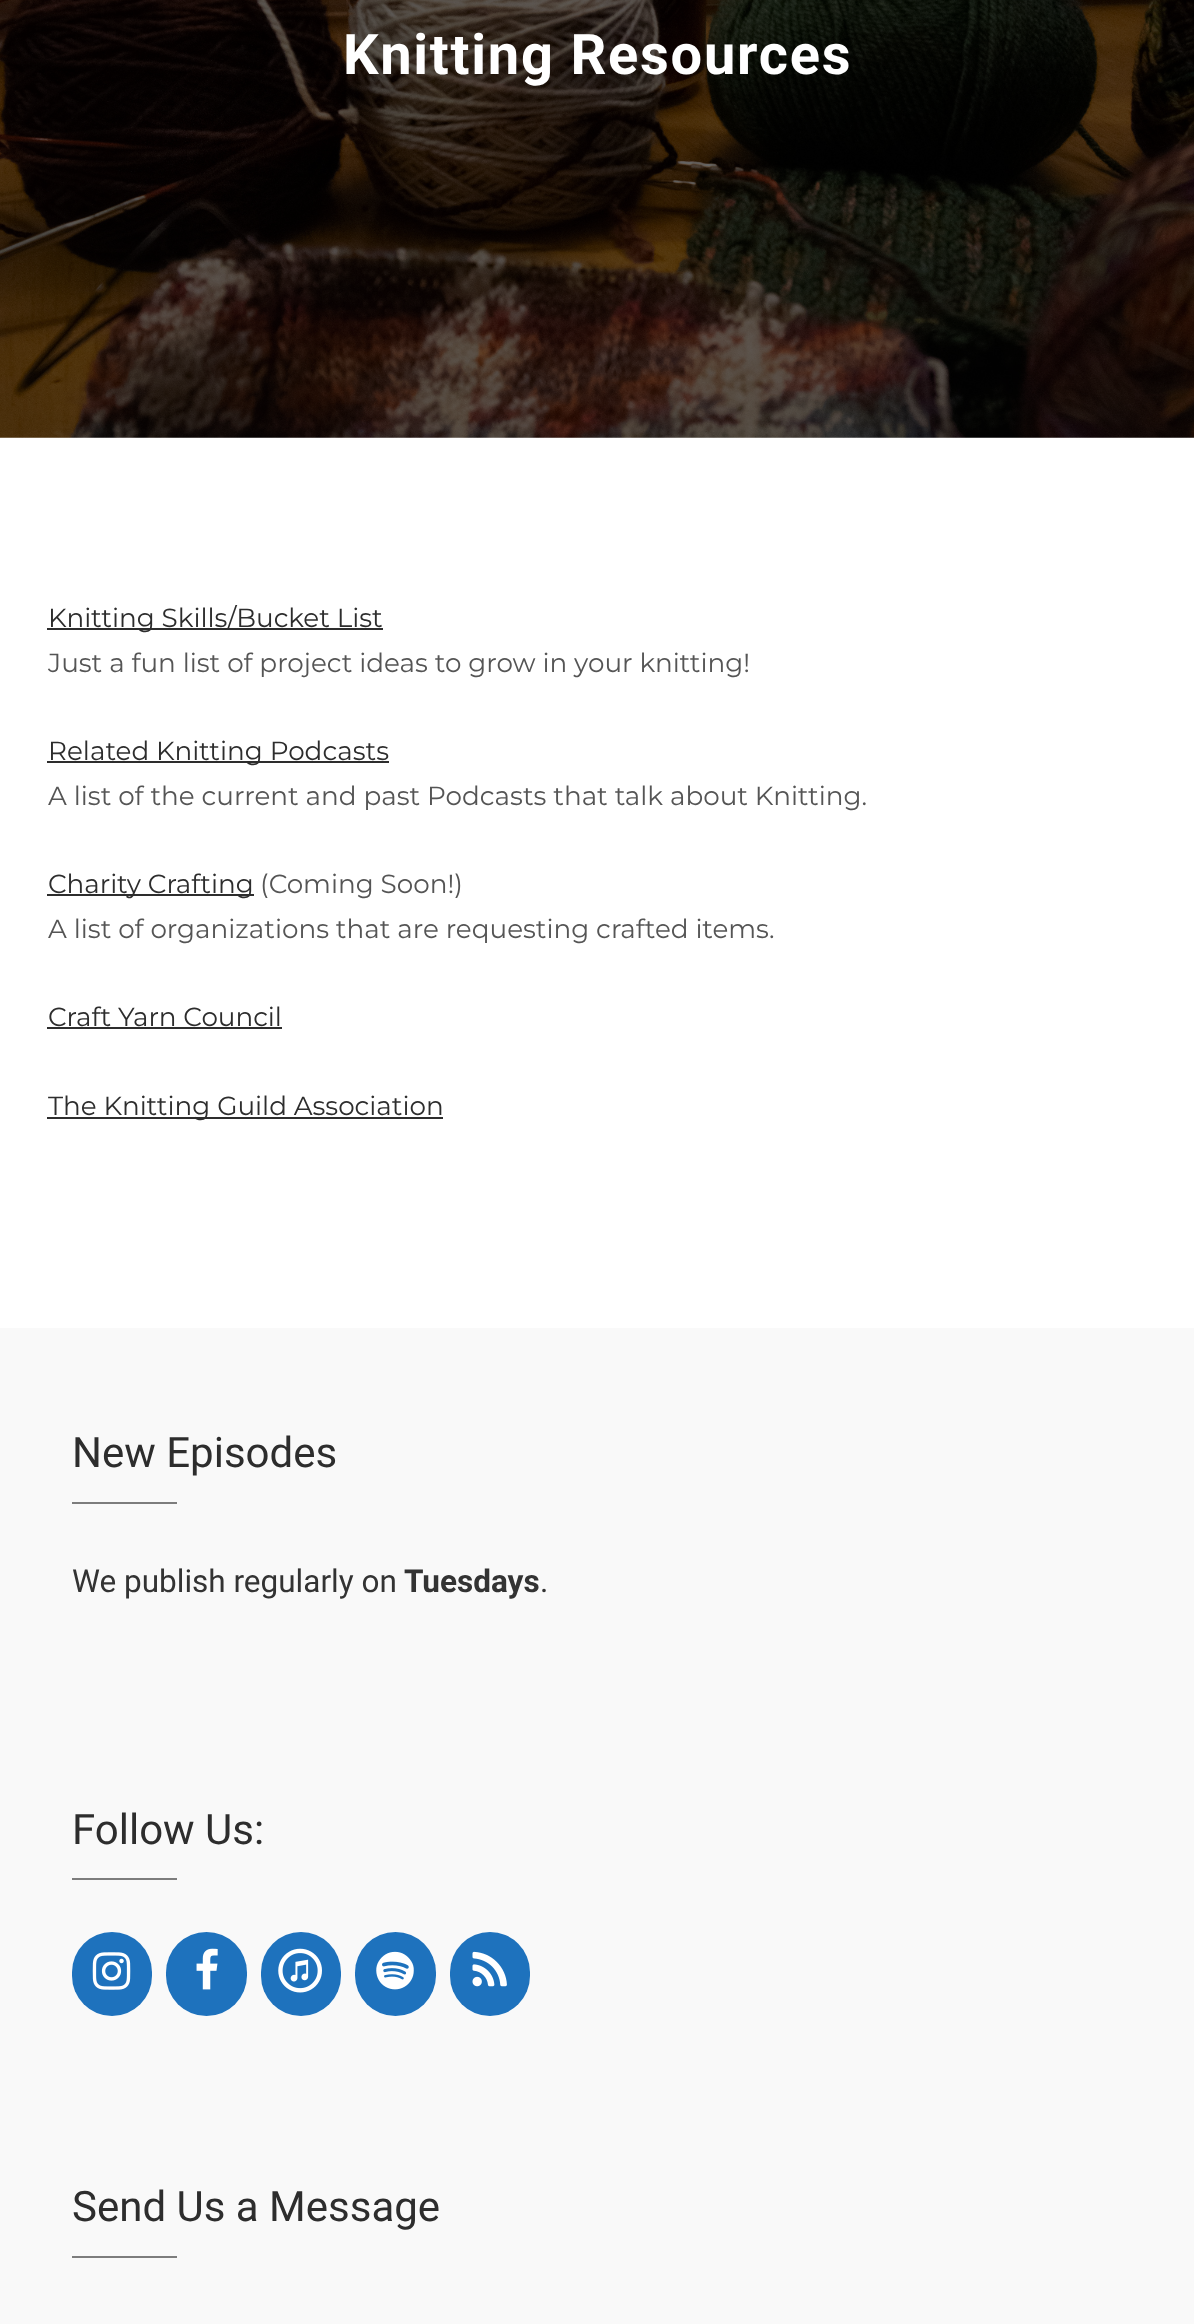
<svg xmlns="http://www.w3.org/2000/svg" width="1194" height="2324">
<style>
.a{font:bold 56px Roboto;letter-spacing:1.75px;fill:#fff}
.b{font:26.25px Montserrat;fill:#2d2d2d}
.c{font:26.25px Montserrat;fill:#555}
.d{font:42px Roboto;fill:#2d2d2d}
.e{font:31.5px Roboto;fill:#333}
.f{font:bold 31.5px Roboto;fill:#333}
</style>
<rect width="100%" height="100%" fill="#fff"/>
<image href="1.png" x="0" y="0" width="1194" height="438"/>
<path fill="#2d2d2d" d="M47 628h336v2H47z"/>
<path fill="#2d2d2d" d="M47 761h342v2H47z"/>
<path fill="#2d2d2d" d="M47 894h207v2H47z"/>
<path fill="#2d2d2d" d="M47 1027h235v2H47z"/>
<path fill="#2d2d2d" d="M47 1117h396v2H47z"/>
<path fill="#f9f9f9" d="M0 1328h1194v996H0z"/>
<path fill="#7d7d7d" d="M72 1502h105v2H72z"/>
<path fill="#7d7d7d" d="M72 1878h105v2H72z"/>
<rect fill="#1e72bd" x="72" y="1932" width="80" height="84" rx="40"/>
<image href="2.png" x="92" y="1952" width="39" height="38"/>
<rect fill="#1e72bd" x="166" y="1932" width="81" height="84" rx="40.5"/>
<image href="3.png" x="196" y="1948" width="22" height="42"/>
<rect fill="#1e72bd" x="261" y="1932" width="80" height="84" rx="40"/>
<image href="4.png" x="278" y="1948" width="44" height="45"/>
<rect fill="#1e72bd" x="355" y="1932" width="81" height="84" rx="40.5"/>
<image href="5.png" x="376" y="1951" width="38" height="39"/>
<rect fill="#1e72bd" x="450" y="1932" width="80" height="84" rx="40"/>
<image href="6.png" x="472" y="1951" width="35" height="36"/>
<path fill="#7d7d7d" d="M72 2256h105v2H72z"/>
<text class="a" x="343" y="74">Knitting Resources</text>
<text class="b" x="48" y="627">Knitting Skills/Bucket List</text>
<text class="c" x="48" y="672">Just a fun list of project ideas to grow in your knitting!</text>
<text class="b" x="48" y="760">Related Knitting Podcasts</text>
<text class="c" x="48" y="805">A list of the current and past Podcasts that talk about Knitting.</text>
<text class="b" x="48" y="893">Charity Crafting</text>
<text class="c" x="260" y="893">(Coming Soon!)</text>
<text class="c" x="48" y="938">A list of organizations that are requesting crafted items.</text>
<text class="b" x="48" y="1026">Craft Yarn Council</text>
<text class="b" x="48" y="1115">The Knitting Guild Association</text>
<text class="d" x="72" y="1467">New Episodes</text>
<text class="e" x="72" y="1592">We publish regularly on</text>
<text class="f" x="404" y="1592">Tuesdays</text>
<text class="e" x="540" y="1592">.</text>
<text class="d" x="72" y="1844">Follow Us:</text>
<text class="d" x="72" y="2221">Send Us a Message</text>
</svg>
